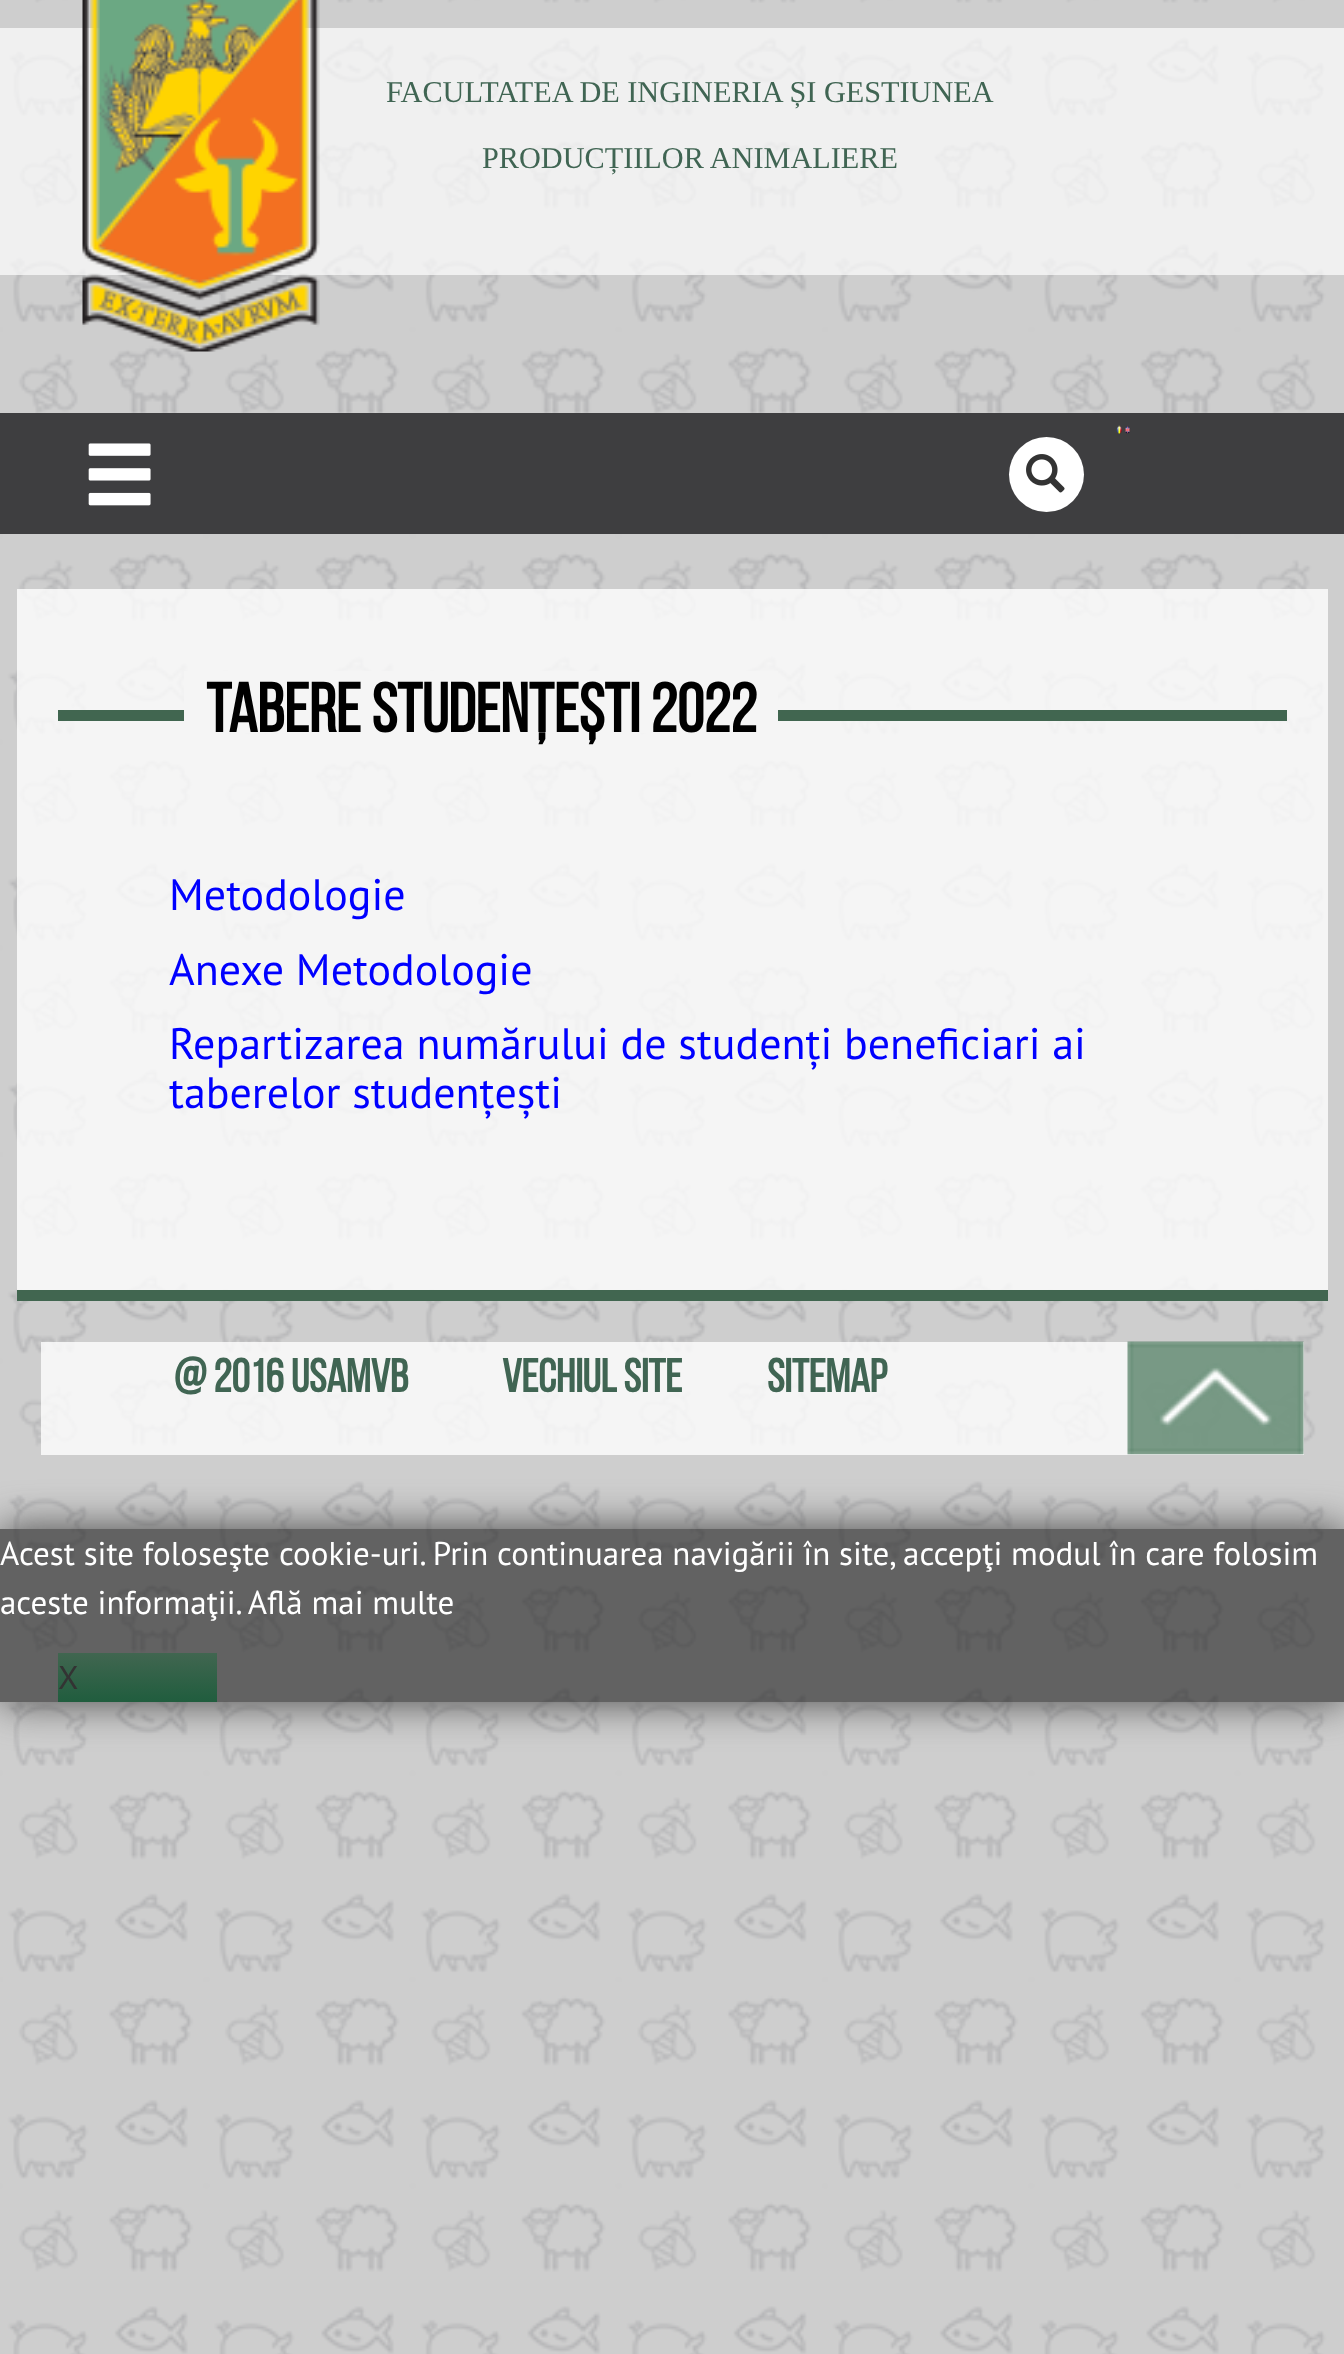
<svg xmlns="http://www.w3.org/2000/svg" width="1344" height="2354">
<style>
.a{font:30.25px Liberation Serif;fill:#406553}
.b{font:bold 68.75px Bebas Neue;fill:#000}
.c{font:44px PT Sans;fill:#00f}
.d{font:bold 46.75px Bebas Neue;fill:#406553}
.e{font:33px PT Sans;fill:#fff}
.f{font:33px PT Sans;fill:#333}
</style>
<defs>
<clipPath id="clip1"><path d="M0 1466h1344v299h-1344zm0 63h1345v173h-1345z" clip-rule="evenodd"/></clipPath>
<linearGradient id="g1" gradientUnits="userSpaceOnUse" x1="138" y1="1653" x2="138" y2="1702"><stop offset="0" stop-color="#416650"/><stop offset="1" stop-color="#205d3e"/></linearGradient>
</defs>
<rect width="100%" height="100%" fill="#c9c9c9"/>
<image href="1.png" x="0" y="0" width="1344" height="2354"/>
<path fill="#ffffffb3" d="M0 28h1344v247H0z"/>
<image href="2.png" x="82" y="0" width="238" height="352"/>
<path fill="#3e3e40" d="M0 413h1344v121H0z"/>
<image href="3.png" x="1116" y="425" width="6" height="9"/>
<image href="4.png" x="1124" y="425" width="7" height="9"/>
<image href="5.png" x="88" y="443" width="63" height="63"/>
<circle fill="#fff" cx="1046.5" cy="474.5" r="37.5"/>
<image href="6.png" x="1026" y="454" width="39" height="39"/>
<path fill="#ffffffcc" d="M17 589h1311v701H17z"/>
<path fill="#416650" d="M17 1290h1311v11H17z"/>
<path fill="#416650" d="M58 710h1229v11H58z"/>
<path fill="#f5f5f5" d="M184 671h594v62H184z"/>
<path fill="#ffffffcc" d="M41 1342h1263v113H41z"/>
<image href="7.png" x="1127" y="1341" width="177" height="114"/>
<g clip-path="url(#clip1)">
<path fill="#444" filter="blur(20.5px)" d="M0 1529h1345v173H0z"/>
</g>
<path fill="#1b1b1b99" d="M0 1529h1344v173H0z"/>
<path fill="url(#g1)" d="M58 1653h159v49H58z"/>
<text class="a" x="386" y="102">FACULTATEA DE INGINERIA ȘI GESTIUNEA</text>
<text class="a" x="482" y="168">PRODUCȚIILOR ANIMALIERE</text>
<text class="b" x="206" y="732">Tabere studențești 2022</text>
<text class="c" x="169" y="910">Metodologie</text>
<text class="c" x="169" y="985">Anexe Metodologie</text>
<text class="c" x="169" y="1059">Repartizarea numărului de studenți beneficiari ai</text>
<text class="c" x="169" y="1108">taberelor studențești</text>
<text class="d" x="174" y="1392">@ 2016 USAMVB</text>
<text class="d" x="502" y="1392">VECHIUL SITE</text>
<text class="d" x="767" y="1392">SITEMAP</text>
<text class="e" x="0" y="1565">Acest site foloseşte cookie-uri. Prin continuarea navigării în site, accepţi modul în care folosim</text>
<text class="e" x="0" y="1614">aceste informaţii. Află mai multe</text>
<text class="f" x="58" y="1689">X</text>
</svg>
